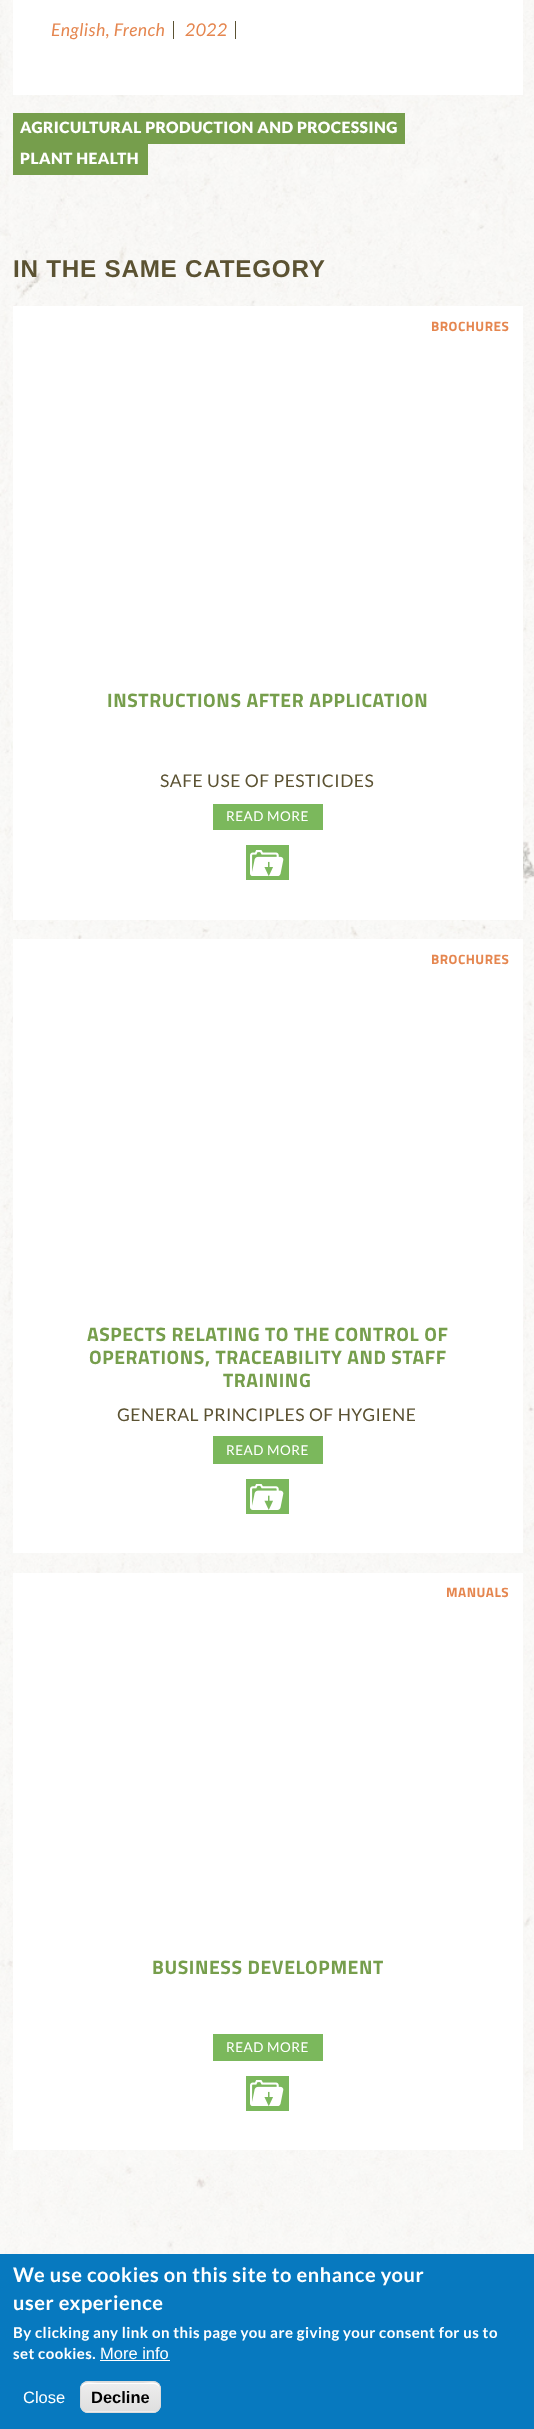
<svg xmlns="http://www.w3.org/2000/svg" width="534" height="2429">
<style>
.a{font:italic 17.5px Lato;letter-spacing:0.5px;fill:#e5864f}
.b{font:900 15.6px Lato;letter-spacing:0.45px;fill:#fff}
.c{font:bold 24.25px Liberation Sans;letter-spacing:0.75px;fill:#5b5232}
.d{font:bold 13.5px Titillium Web;letter-spacing:0.5px;fill:#e5864f}
.e{font:bold 19.4px Titillium Web;letter-spacing:0.6px;fill:#769e4c}
.f{font:17.5px Lato;letter-spacing:0.5px;fill:#5b5232}
.g{font:13.5px Lato;letter-spacing:0.5px;fill:#fff}
.h{font:bold 20px Lato;letter-spacing:0.6px;fill:#fff}
.i{font:bold 15px Lato;letter-spacing:0.45px;fill:#fff}
.j{font:16.5px Liberation Sans;fill:#fff}
.k{font:bold 16.5px Liberation Sans;fill:#000}
</style>
<defs>
<clipPath id="clip1"><rect x="80" y="2381" width="81" height="32" rx="8"/></clipPath>
<linearGradient id="g1" gradientUnits="userSpaceOnUse" x1="121" y1="2354" x2="121" y2="2383"><stop offset="0.05" stop-color="#ededed"/><stop offset="1" stop-color="#dfdfdf"/></linearGradient>
<linearGradient id="g2" gradientUnits="userSpaceOnUse" x1="121" y1="2383" x2="121" y2="2411"><stop offset="0.05" stop-color="#ededed"/><stop offset="1" stop-color="#dfdfdf"/></linearGradient>
<linearGradient id="g3" gradientUnits="userSpaceOnUse" x1="121" y1="2411" x2="121" y2="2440"><stop offset="0.05" stop-color="#ededed"/><stop offset="1" stop-color="#dfdfdf"/></linearGradient>
</defs>
<rect width="100%" height="100%" fill="#fff"/>
<image href="1.png" x="0" y="0" width="534" height="2254"/>
<path fill="#fff" d="M13 0h510v95H13z"/>
<path fill="#5b5232" d="M173 21h1v18H173z"/>
<path fill="#5b5232" d="M235 21h1v18H235z"/>
<path fill="#769e4c" d="M13 113h392v31H13z"/>
<path fill="#769e4c" d="M13 144h135v31H13z"/>
<path fill="#fff" d="M13 306h510v614H13z"/>
<path fill="#7bb85c" d="M213 804h110v26H213z"/>
<path fill="#7bb85c" d="M246 845h43v35H246z"/>
<image href="2.png" x="250" y="850" width="34" height="26"/>
<path fill="#fff" d="M13 939h510v614H13z"/>
<path fill="#7bb85c" d="M213 1436h110v28H213z"/>
<path fill="#7bb85c" d="M246 1479h43v35H246z"/>
<image href="3.png" x="250" y="1484" width="34" height="26"/>
<path fill="#fff" d="M13 1573h510v577H13z"/>
<path fill="#7bb85c" d="M213 2034h110v27H213z"/>
<path fill="#7bb85c" d="M246 2076h43v35H246z"/>
<image href="2.png" x="250" y="2080" width="34" height="26"/>
<path fill="#0779bf" d="M0 2254h534v175H0z"/>
<path fill="#fff" d="M100 2360h70v1H100z"/>
<g clip-path="url(#clip1)">
<path fill="url(#g1)" d="M80 2381h81v2H80z"/>
<path fill="url(#g2)" d="M80 2383h81v28H80z"/>
<path fill="url(#g3)" d="M80 2411h81v2H80z"/>
</g>
<path fill="#fff" d="M88 2384h66c3 0 6 3 6 6c0-10-10-7-17-7h-45c-7 0-17-3-17 7c0-3 3-6 7-6z"/>
<rect fill="none" stroke="#dcdcdc" x="80.5" y="2381.5" width="80" height="31" rx="7.5"/>
<text class="a" x="51" y="36">English, French</text>
<text class="a" x="185" y="36">2022</text>
<text class="b" x="20" y="133">AGRICULTURAL PRODUCTION AND PROCESSING</text>
<text class="b" x="20" y="164">PLANT HEALTH</text>
<text class="c" x="13" y="277">IN THE SAME CATEGORY</text>
<text class="d" x="431" y="331">BROCHURES</text>
<text class="e" x="107" y="707">INSTRUCTIONS AFTER APPLICATION</text>
<text class="f" x="160" y="787">SAFE USE OF PESTICIDES</text>
<text class="g" x="226" y="821">READ MORE</text>
<text class="d" x="431" y="964">BROCHURES</text>
<text class="e" x="87" y="1341">ASPECTS RELATING TO THE CONTROL OF</text>
<text class="e" x="89" y="1364">OPERATIONS, TRACEABILITY AND STAFF</text>
<text class="e" x="223" y="1387">TRAINING</text>
<text class="f" x="117" y="1421">GENERAL PRINCIPLES OF HYGIENE</text>
<text class="g" x="226" y="1455">READ MORE</text>
<text class="d" x="446" y="1597">MANUALS</text>
<text class="e" x="152" y="1974">BUSINESS DEVELOPMENT</text>
<text class="g" x="226" y="2052">READ MORE</text>
<text class="h" x="13" y="2282">We use cookies on this site to enhance your</text>
<text class="h" x="13" y="2310">user experience</text>
<text class="i" x="13" y="2338">By clicking any link on this page you are giving your consent for us to</text>
<text class="i" x="13" y="2359">set cookies.</text>
<text class="j" x="100" y="2359">More info</text>
<text class="j" x="23" y="2403">Close</text>
<text class="k" x="91" y="2403">Decline</text>
</svg>
